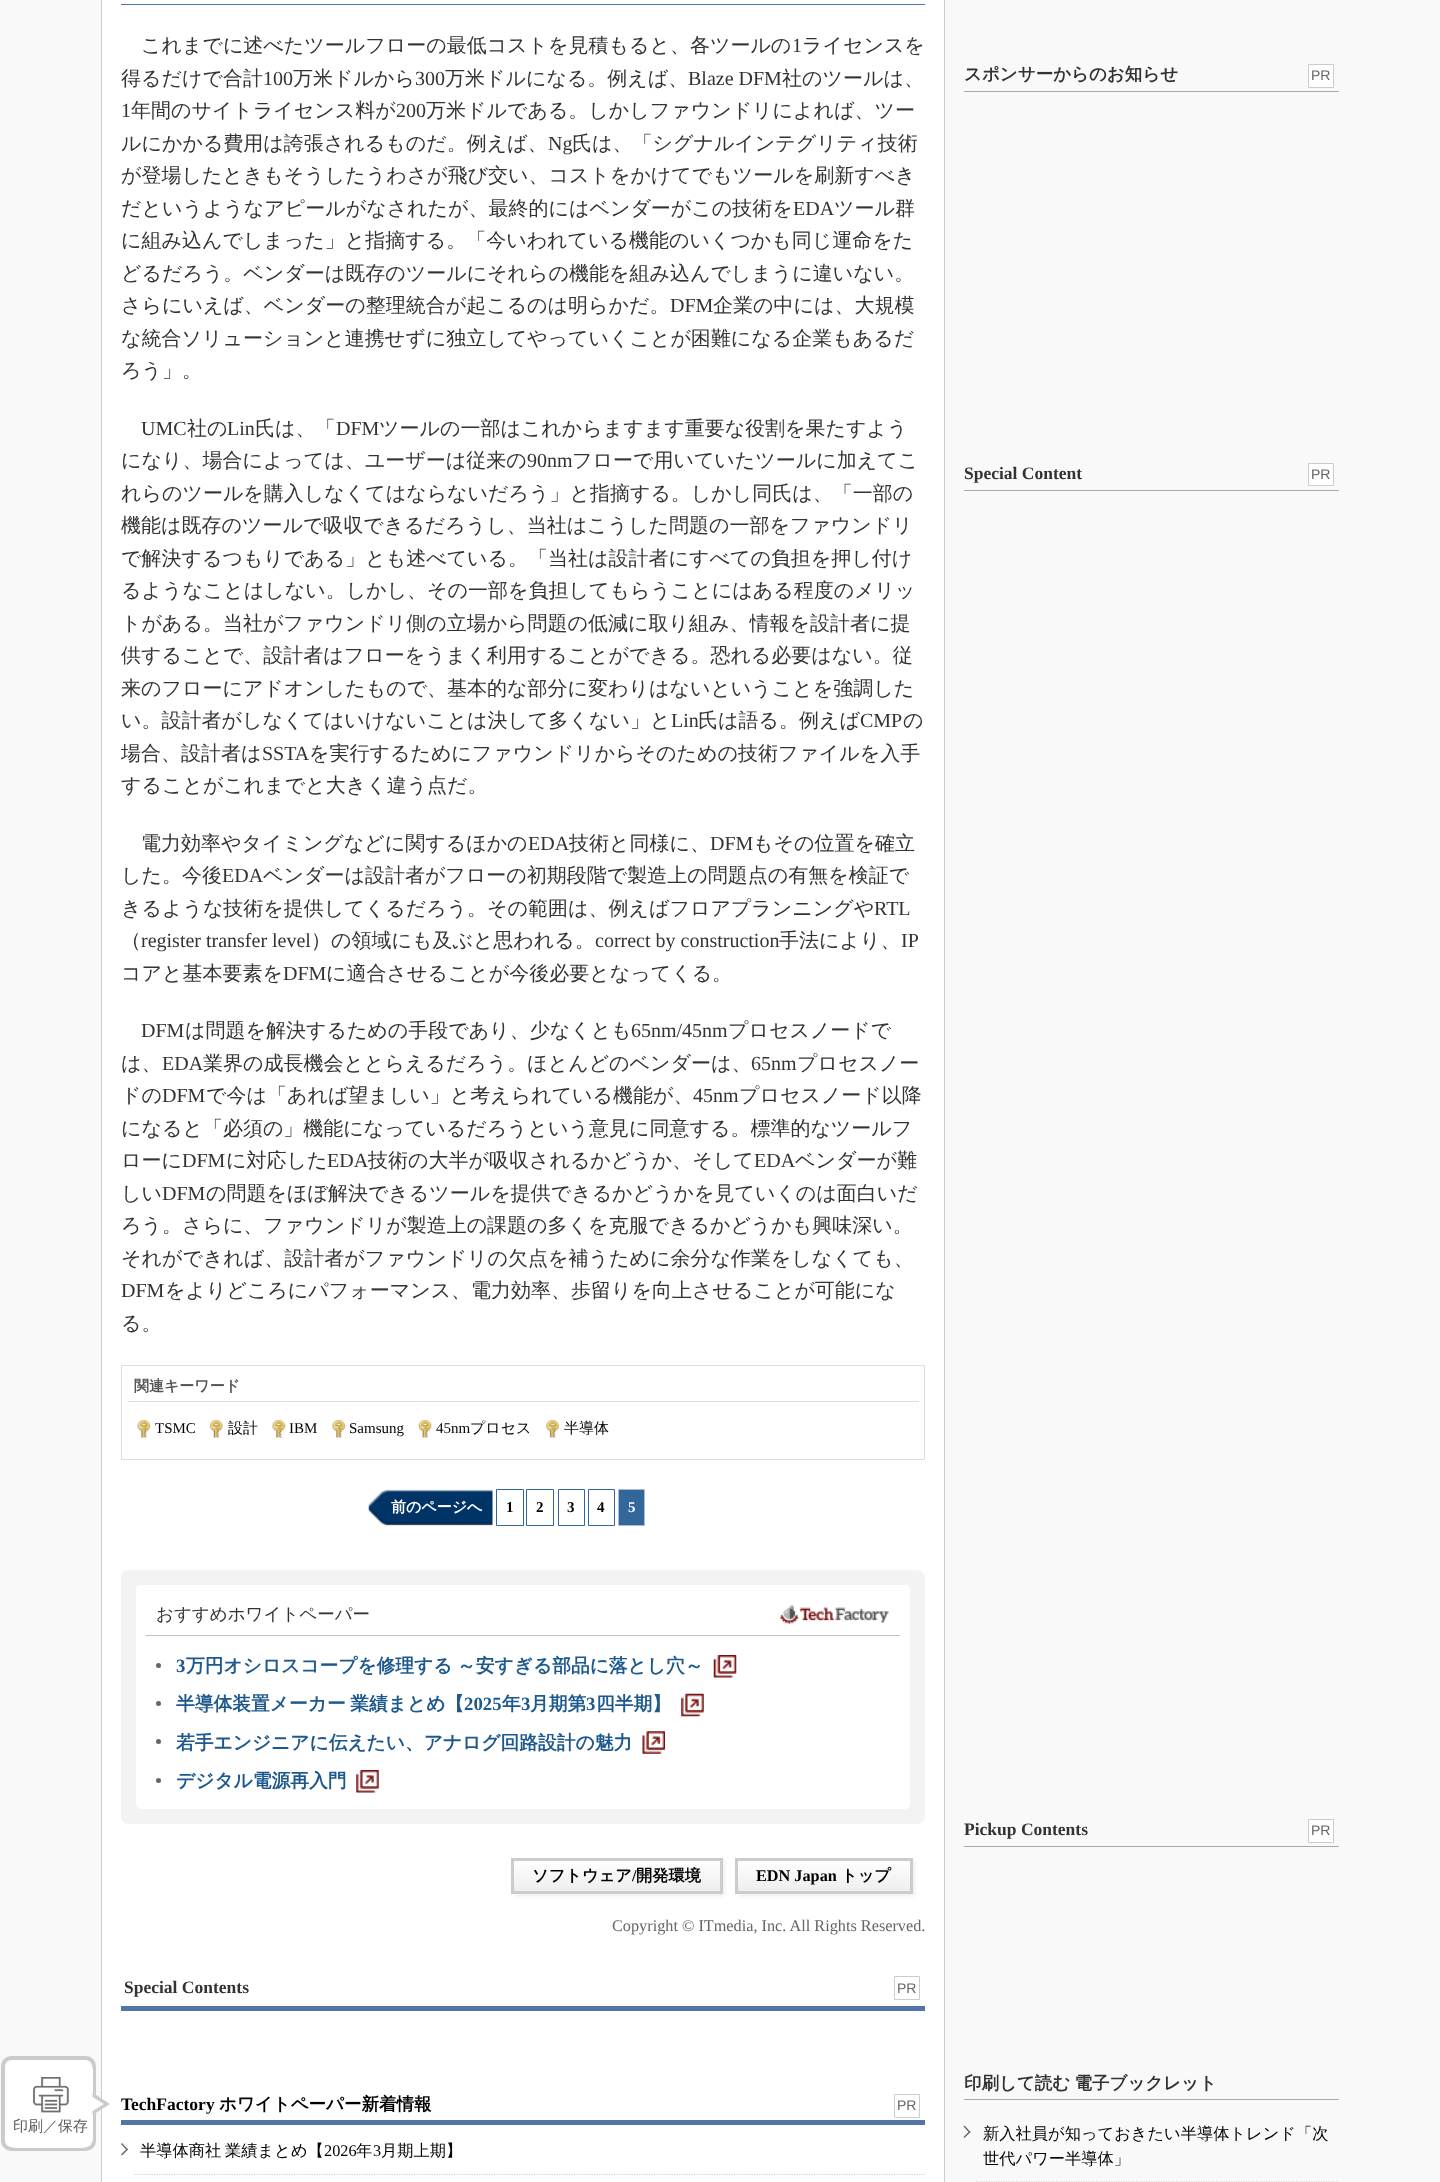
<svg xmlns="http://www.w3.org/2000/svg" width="1440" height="2182">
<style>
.a{font:500 20px WenQuanYi Zen Hei;fill:#333}
.b{font:20px Liberation Serif;fill:#333}
.c{font:bold 15px WenQuanYi Zen Hei;fill:#555}
.d{font:15px Liberation Serif;fill:#000}
.e{font:500 15px WenQuanYi Zen Hei;fill:#000}
.f{font:bold 15px WenQuanYi Zen Hei;fill:#fff}
.g{font:bold 15px Liberation Serif;fill:#000}
.h{font:bold 15px Liberation Serif;fill:#fff}
.i{font:500 17.5px WenQuanYi Zen Hei;fill:#333}
.j{font:bold 18.75px Liberation Serif;fill:#1e598e}
.k{font:bold 18.75px WenQuanYi Zen Hei;fill:#1e598e}
.l{font:bold 16.25px WenQuanYi Zen Hei;fill:#000}
.m{font:bold 16.25px Liberation Serif;fill:#000}
.n{font:16.25px Liberation Serif;fill:#666}
.o{font:bold 17.5px Liberation Serif;fill:#333}
.p{font:14px Liberation Sans;fill:#666}
.q{font:500 15px WenQuanYi Zen Hei;fill:#5b5b5b}
.r{font:bold 17.5px Liberation Serif;fill:#000}
.s{font:bold 17.5px WenQuanYi Zen Hei;fill:#000}
.t{font:500 16.25px WenQuanYi Zen Hei;fill:#000}
.u{font:16.25px Liberation Serif;fill:#000}
.v{font:bold 17.5px WenQuanYi Zen Hei;fill:#333}
</style>
<defs>
<linearGradient id="g1" gradientUnits="userSpaceOnUse" x1="514" y1="1860" x2="514" y2="1891"><stop offset="0" stop-color="#fff"/><stop offset="1" stop-color="#eee"/></linearGradient>
<linearGradient id="g2" gradientUnits="userSpaceOnUse" x1="738" y1="1860" x2="738" y2="1891"><stop offset="0" stop-color="#fff"/><stop offset="1" stop-color="#eee"/></linearGradient>
</defs>
<rect width="100%" height="100%" fill="#f9f9f9"/>
<path fill="#fff" stroke="#ccc" d="M101.5 -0.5h843v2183H101.5z"/>
<path fill="#5075a6" d="M121 4h804v1H121z"/>
<path fill="none" stroke="#ddd" d="M121.5 1365.5h803v94H121.5z"/>
<path fill="#ddd" d="M128 1401h791v1H128z"/>
<image href="1.png" x="137" y="1420" width="14" height="18"/>
<image href="2.png" x="209" y="1420" width="14" height="18"/>
<image href="3.png" x="272" y="1420" width="14" height="18"/>
<image href="3.png" x="332" y="1420" width="14" height="18"/>
<image href="4.png" x="418" y="1420" width="14" height="18"/>
<image href="5.png" x="546" y="1420" width="13" height="18"/>
<image href="6.png" x="368" y="1489" width="125" height="37"/>
<path fill="none" stroke="#369" d="M496.5 1489.5h27v36H496.5z"/>
<path fill="none" stroke="#369" d="M526.5 1489.5h27v36H526.5z"/>
<path fill="none" stroke="#369" d="M558.5 1489.5h26v36H558.5z"/>
<path fill="none" stroke="#369" d="M588.5 1489.5h26v36H588.5z"/>
<path fill="#369" stroke="#abd" d="M618.5 1489.5h26v36H618.5z"/>
<rect fill="#f4f3f3" x="121" y="1570" width="804" height="254" rx="8"/>
<rect fill="#fff" stroke="#f4f3f3" stroke-width="15" x="128.5" y="1577.5" width="789" height="239" rx="12.5"/>
<image href="7.png" x="779" y="1605" width="110" height="19"/>
<path fill="#c1c1c1" d="M146 1635h754v1H146z"/>
<circle fill="#666" cx="158.5" cy="1665.5" r="2.5"/>
<image href="8.png" x="713" y="1655" width="24" height="23"/>
<circle fill="#666" cx="158.5" cy="1703.5" r="2.5"/>
<image href="9.png" x="681" y="1693" width="23" height="24"/>
<circle fill="#666" cx="158.5" cy="1741.5" r="2.5"/>
<image href="10.png" x="642" y="1731" width="23" height="23"/>
<circle fill="#666" cx="158.5" cy="1780.5" r="2.5"/>
<image href="11.png" x="356" y="1770" width="23" height="23"/>
<path fill="#eee" filter="blur(2px)" d="M514 1860h211v36H514z"/>
<path fill="url(#g1)" d="M514 1861h206v30H514z"/>
<path fill="none" stroke="#ccc" stroke-width="3" d="M512.5 1859.5h209v33H512.5z"/>
<path fill="#eee" filter="blur(2px)" d="M738 1860h177v36H738z"/>
<path fill="url(#g2)" d="M738 1861h172v30H738z"/>
<path fill="none" stroke="#ccc" stroke-width="3" d="M736.5 1859.5h175v33H736.5z"/>
<path fill="#5075a6" d="M121 2006h804v5H121z"/>
<path fill="none" stroke="#ccc" d="M894.5 1976.5h25v23H894.5z"/>
<rect fill="none" stroke="#cbcbcb" stroke-width="4" x="3" y="2058" width="91" height="91" rx="8"/>
<rect fill="#fff" x="5" y="2060" width="88" height="88" rx="10"/>
<path fill="#cbcbcb" d="M92.5 2115v-22.5l17.5 11.5z"/>
<path fill="#fff" d="M87.5 2114v-20l16.5 10z"/>
<image href="12.png" x="33" y="2077" width="36" height="36"/>
<path fill="#5075a6" d="M121 2120h804v5H121z"/>
<path fill="none" stroke="#ccc" d="M894.5 2094.5h25v23H894.5z"/>
<path fill="none" stroke="#ccc" stroke-width="1.2" stroke-dasharray="1.25 1.25" d="M134 2174.5h791"/>
<path fill="#666" d="M121 2144l1-1l6 6.5l-1 1z"/>
<path fill="#666" d="M121 2154.5l6-6l1 1l-6 6z"/>
<path fill="#aaa" d="M964 91h375v1H964z"/>
<path fill="#fff" stroke="#ccc" d="M1308.5 64.5h25v23H1308.5z"/>
<path fill="#aaa" d="M964 490h375v1H964z"/>
<path fill="#fff" stroke="#ccc" d="M1308.5 463.5h25v22H1308.5z"/>
<path fill="#aaa" d="M964 1846h375v1H964z"/>
<path fill="#fff" stroke="#ccc" d="M1308.5 1819.5h25v23H1308.5z"/>
<path fill="#aaa" d="M964 2099h375v1H964z"/>
<path fill="none" stroke="#ccc" stroke-width="1.2" stroke-dasharray="1.25 1.25" d="M976 2182h363"/>
<path fill="#666" d="M963.5 2126.5l1-1l6 6.5l-1 1z"/>
<path fill="#666" d="M963.5 2137l6-6l1 1l-6 6z"/>
<text class="a" x="141" y="52">これまでに述べたツールフローの最低コストを見積もると、各ツールの</text>
<text class="b" x="792" y="52">1</text>
<text class="a" x="802" y="52">ライセンスを</text>
<text class="a" x="121" y="85">得るだけで合計</text>
<text class="b" x="263" y="85">100</text>
<text class="a" x="293" y="85">万米ドルから</text>
<text class="b" x="415" y="85">300</text>
<text class="a" x="445" y="85">万米ドルになる。例えば、</text>
<text class="b" x="688" y="85">Blaze DFM</text>
<text class="a" x="782" y="85">社のツールは、</text>
<text class="b" x="121" y="117">1</text>
<text class="a" x="131" y="117">年間のサイトライセンス料が</text>
<text class="b" x="396" y="117">200</text>
<text class="a" x="426" y="117">万米ドルである。しかしファウンドリによれば、ツー</text>
<text class="a" x="121" y="150">ルにかかる費用は誇張されるものだ。例えば、</text>
<text class="b" x="548" y="150">Ng</text>
<text class="a" x="572" y="150">氏は、「シグナルインテグリティ技術</text>
<text class="a" x="121" y="182">が登場したときもそうしたうわさが飛び交い、コストをかけてでもツールを刷新すべき</text>
<text class="a" x="121" y="215">だというようなアピールがなされたが、最終的にはベンダーがこの技術を</text>
<text class="b" x="793" y="215">EDA</text>
<text class="a" x="834" y="215">ツール群</text>
<text class="a" x="121" y="247">に組み込んでしまった」と指摘する。「今いわれている機能のいくつかも同じ運命をた</text>
<text class="a" x="121" y="280">どるだろう。ベンダーは既存のツールにそれらの機能を組み込んでしまうに違いない。</text>
<text class="a" x="121" y="312">さらにいえば、ベンダーの整理統合が起こるのは明らかだ。</text>
<text class="b" x="670" y="312">DFM</text>
<text class="a" x="713" y="312">企業の中には、大規模</text>
<text class="a" x="121" y="345">な統合ソリューションと連携せずに独立してやっていくことが困難になる企業もあるだ</text>
<text class="a" x="121" y="377">ろう」。</text>
<text class="b" x="141" y="435">UMC</text>
<text class="a" x="187" y="435">社の</text>
<text class="b" x="227" y="435">Lin</text>
<text class="a" x="255" y="435">氏は、「</text>
<text class="b" x="336" y="435">DFM</text>
<text class="a" x="379" y="435">ツールの一部はこれからますます重要な役割を果たすよう</text>
<text class="a" x="121" y="467">になり、場合によっては、ユーザーは従来の</text>
<text class="b" x="527" y="467">90nm</text>
<text class="a" x="572" y="467">フローで用いていたツールに加えてこ</text>
<text class="a" x="121" y="500">れらのツールを購入しなくてはならないだろう」と指摘する。しかし同氏は、「一部の</text>
<text class="a" x="121" y="532">機能は既存のツールで吸収できるだろうし、当社はこうした問題の一部をファウンドリ</text>
<text class="a" x="121" y="565">で解決するつもりである」とも述べている。「当社は設計者にすべての負担を押し付け</text>
<text class="a" x="121" y="597">るようなことはしない。しかし、その一部を負担してもらうことにはある程度のメリッ</text>
<text class="a" x="121" y="630">トがある。当社がファウンドリ側の立場から問題の低減に取り組み、情報を設計者に提</text>
<text class="a" x="121" y="662">供することで、設計者はフローをうまく利用することができる。恐れる必要はない。従</text>
<text class="a" x="121" y="695">来のフローにアドオンしたもので、基本的な部分に変わりはないということを強調した</text>
<text class="a" x="121" y="727">い。設計者がしなくてはいけないことは決して多くない」と</text>
<text class="b" x="671" y="727">Lin</text>
<text class="a" x="698" y="727">氏は語る。例えば</text>
<text class="b" x="860" y="727">CMP</text>
<text class="a" x="903" y="727">の</text>
<text class="a" x="121" y="760">場合、設計者は</text>
<text class="b" x="262" y="760">SSTA</text>
<text class="a" x="309" y="760">を実行するためにファウンドリからそのための技術ファイルを入手</text>
<text class="a" x="121" y="792">することがこれまでと大きく違う点だ。</text>
<text class="a" x="141" y="850">電力効率やタイミングなどに関するほかの</text>
<text class="b" x="528" y="850">EDA</text>
<text class="a" x="569" y="850">技術と同様に、</text>
<text class="b" x="710" y="850">DFM</text>
<text class="a" x="753" y="850">もその位置を確立</text>
<text class="a" x="121" y="882">した。今後</text>
<text class="b" x="222" y="882">EDA</text>
<text class="a" x="263" y="882">ベンダーは設計者がフローの初期段階で製造上の問題点の有無を検証で</text>
<text class="a" x="121" y="915">きるような技術を提供してくるだろう。その範囲は、例えばフロアプランニングや</text>
<text class="b" x="874" y="915">RTL</text>
<text class="a" x="121" y="947">（</text>
<text class="b" x="141" y="947">register transfer level</text>
<text class="a" x="311" y="947">）の領域にも及ぶと思われる。</text>
<text class="b" x="595" y="947">correct by construction</text>
<text class="a" x="779" y="947">手法により、</text>
<text class="b" x="901" y="947">IP</text>
<text class="a" x="121" y="980">コアと基本要素を</text>
<text class="b" x="283" y="980">DFM</text>
<text class="a" x="326" y="980">に適合させることが今後必要となってくる。</text>
<text class="b" x="141" y="1037">DFM</text>
<text class="a" x="185" y="1037">は問題を解決するための手段であり、少なくとも</text>
<text class="b" x="631" y="1037">65nm/45nm</text>
<text class="a" x="728" y="1037">プロセスノードで</text>
<text class="a" x="121" y="1070">は、</text>
<text class="b" x="162" y="1070">EDA</text>
<text class="a" x="203" y="1070">業界の成長機会ととらえるだろう。ほとんどのベンダーは、</text>
<text class="b" x="751" y="1070">65nm</text>
<text class="a" x="797" y="1070">プロセスノー</text>
<text class="a" x="121" y="1102">ドの</text>
<text class="b" x="162" y="1102">DFM</text>
<text class="a" x="206" y="1102">で今は「あれば望ましい」と考えられている機能が、</text>
<text class="b" x="693" y="1102">45nm</text>
<text class="a" x="739" y="1102">プロセスノード以降</text>
<text class="a" x="121" y="1135">になると「必須の」機能になっているだろうという意見に同意する。標準的なツールフ</text>
<text class="a" x="121" y="1167">ローに</text>
<text class="b" x="182" y="1167">DFM</text>
<text class="a" x="226" y="1167">に対応した</text>
<text class="b" x="327" y="1167">EDA</text>
<text class="a" x="368" y="1167">技術の大半が吸収されるかどうか、そして</text>
<text class="b" x="754" y="1167">EDA</text>
<text class="a" x="795" y="1167">ベンダーが難</text>
<text class="a" x="121" y="1200">しい</text>
<text class="b" x="162" y="1200">DFM</text>
<text class="a" x="206" y="1200">の問題をほぼ解決できるツールを提供できるかどうかを見ていくのは面白いだ</text>
<text class="a" x="121" y="1232">ろう。さらに、ファウンドリが製造上の課題の多くを克服できるかどうかも興味深い。</text>
<text class="a" x="121" y="1265">それができれば、設計者がファウンドリの欠点を補うために余分な作業をしなくても、</text>
<text class="b" x="121" y="1297">DFM</text>
<text class="a" x="165" y="1297">をよりどころにパフォーマンス、電力効率、歩留りを向上させることが可能にな</text>
<text class="a" x="121" y="1330">る。</text>
<text class="c" x="134" y="1391">関連キーワード</text>
<text class="d" x="155" y="1433">TSMC</text>
<text class="e" x="228" y="1433">設計</text>
<text class="d" x="289" y="1433">IBM</text>
<text class="d" x="349" y="1433">Samsung</text>
<text class="d" x="436" y="1433">45nm</text>
<text class="e" x="470" y="1433">プロセス</text>
<text class="e" x="564" y="1433">半導体</text>
<text class="f" x="391" y="1512">前のページへ</text>
<text class="g" x="506" y="1512">1</text>
<text class="g" x="536" y="1512">2</text>
<text class="g" x="567" y="1512">3</text>
<text class="g" x="597" y="1512">4</text>
<text class="h" x="628" y="1512">5</text>
<text class="i" x="156" y="1620">おすすめホワイトペーパー</text>
<text class="j" x="176" y="1672">3</text>
<text class="k" x="186" y="1672" word-spacing="-1">万円オシロスコープを修理する ～安すぎる部品に落とし穴～</text>
<text class="k" x="176" y="1710" word-spacing="-1">半導体装置メーカー 業績まとめ【</text>
<text class="j" x="464" y="1710">2025</text>
<text class="k" x="502" y="1710">年</text>
<text class="j" x="521" y="1710">3</text>
<text class="k" x="530" y="1710">月期第</text>
<text class="j" x="586" y="1710">3</text>
<text class="k" x="596" y="1710">四半期】</text>
<text class="k" x="176" y="1749">若手エンジニアに伝えたい、アナログ回路設計の魅力</text>
<text class="k" x="176" y="1787">デジタル電源再入門</text>
<text class="l" x="532" y="1881">ソフトウェア</text>
<text class="m" x="632" y="1881">/</text>
<text class="l" x="636" y="1881">開発環境</text>
<text class="m" x="756" y="1881">EDN Japan</text>
<text class="l" x="841" y="1881">トップ</text>
<text class="n" x="612" y="1931">Copyright © ITmedia, Inc. All Rights Reserved.</text>
<text class="o" x="124" y="1993">Special Contents</text>
<text class="p" x="897" y="1993">PR</text>
<text class="q" x="13" y="2131">印刷／保存</text>
<text class="r" x="121" y="2110">TechFactory</text>
<text class="s" x="219" y="2110">ホワイトペーパー新着情報</text>
<text class="p" x="897" y="2110">PR</text>
<text class="t" x="140" y="2156" word-spacing="-1">半導体商社 業績まとめ【</text>
<text class="u" x="324" y="2156">2026</text>
<text class="t" x="356" y="2156">年</text>
<text class="u" x="373" y="2156">3</text>
<text class="t" x="381" y="2156">月期上期】</text>
<text class="v" x="964" y="80">スポンサーからのお知らせ</text>
<text class="p" x="1311" y="80">PR</text>
<text class="o" x="964" y="479">Special Content</text>
<text class="p" x="1311" y="479">PR</text>
<text class="o" x="964" y="1835">Pickup Contents</text>
<text class="p" x="1311" y="1835">PR</text>
<text class="v" x="964" y="2089" word-spacing="-1">印刷して読む 電子ブックレット</text>
<text class="t" x="983" y="2139">新入社員が知っておきたい半導体トレンド「次</text>
<text class="t" x="983" y="2164">世代パワー半導体」</text>
</svg>
